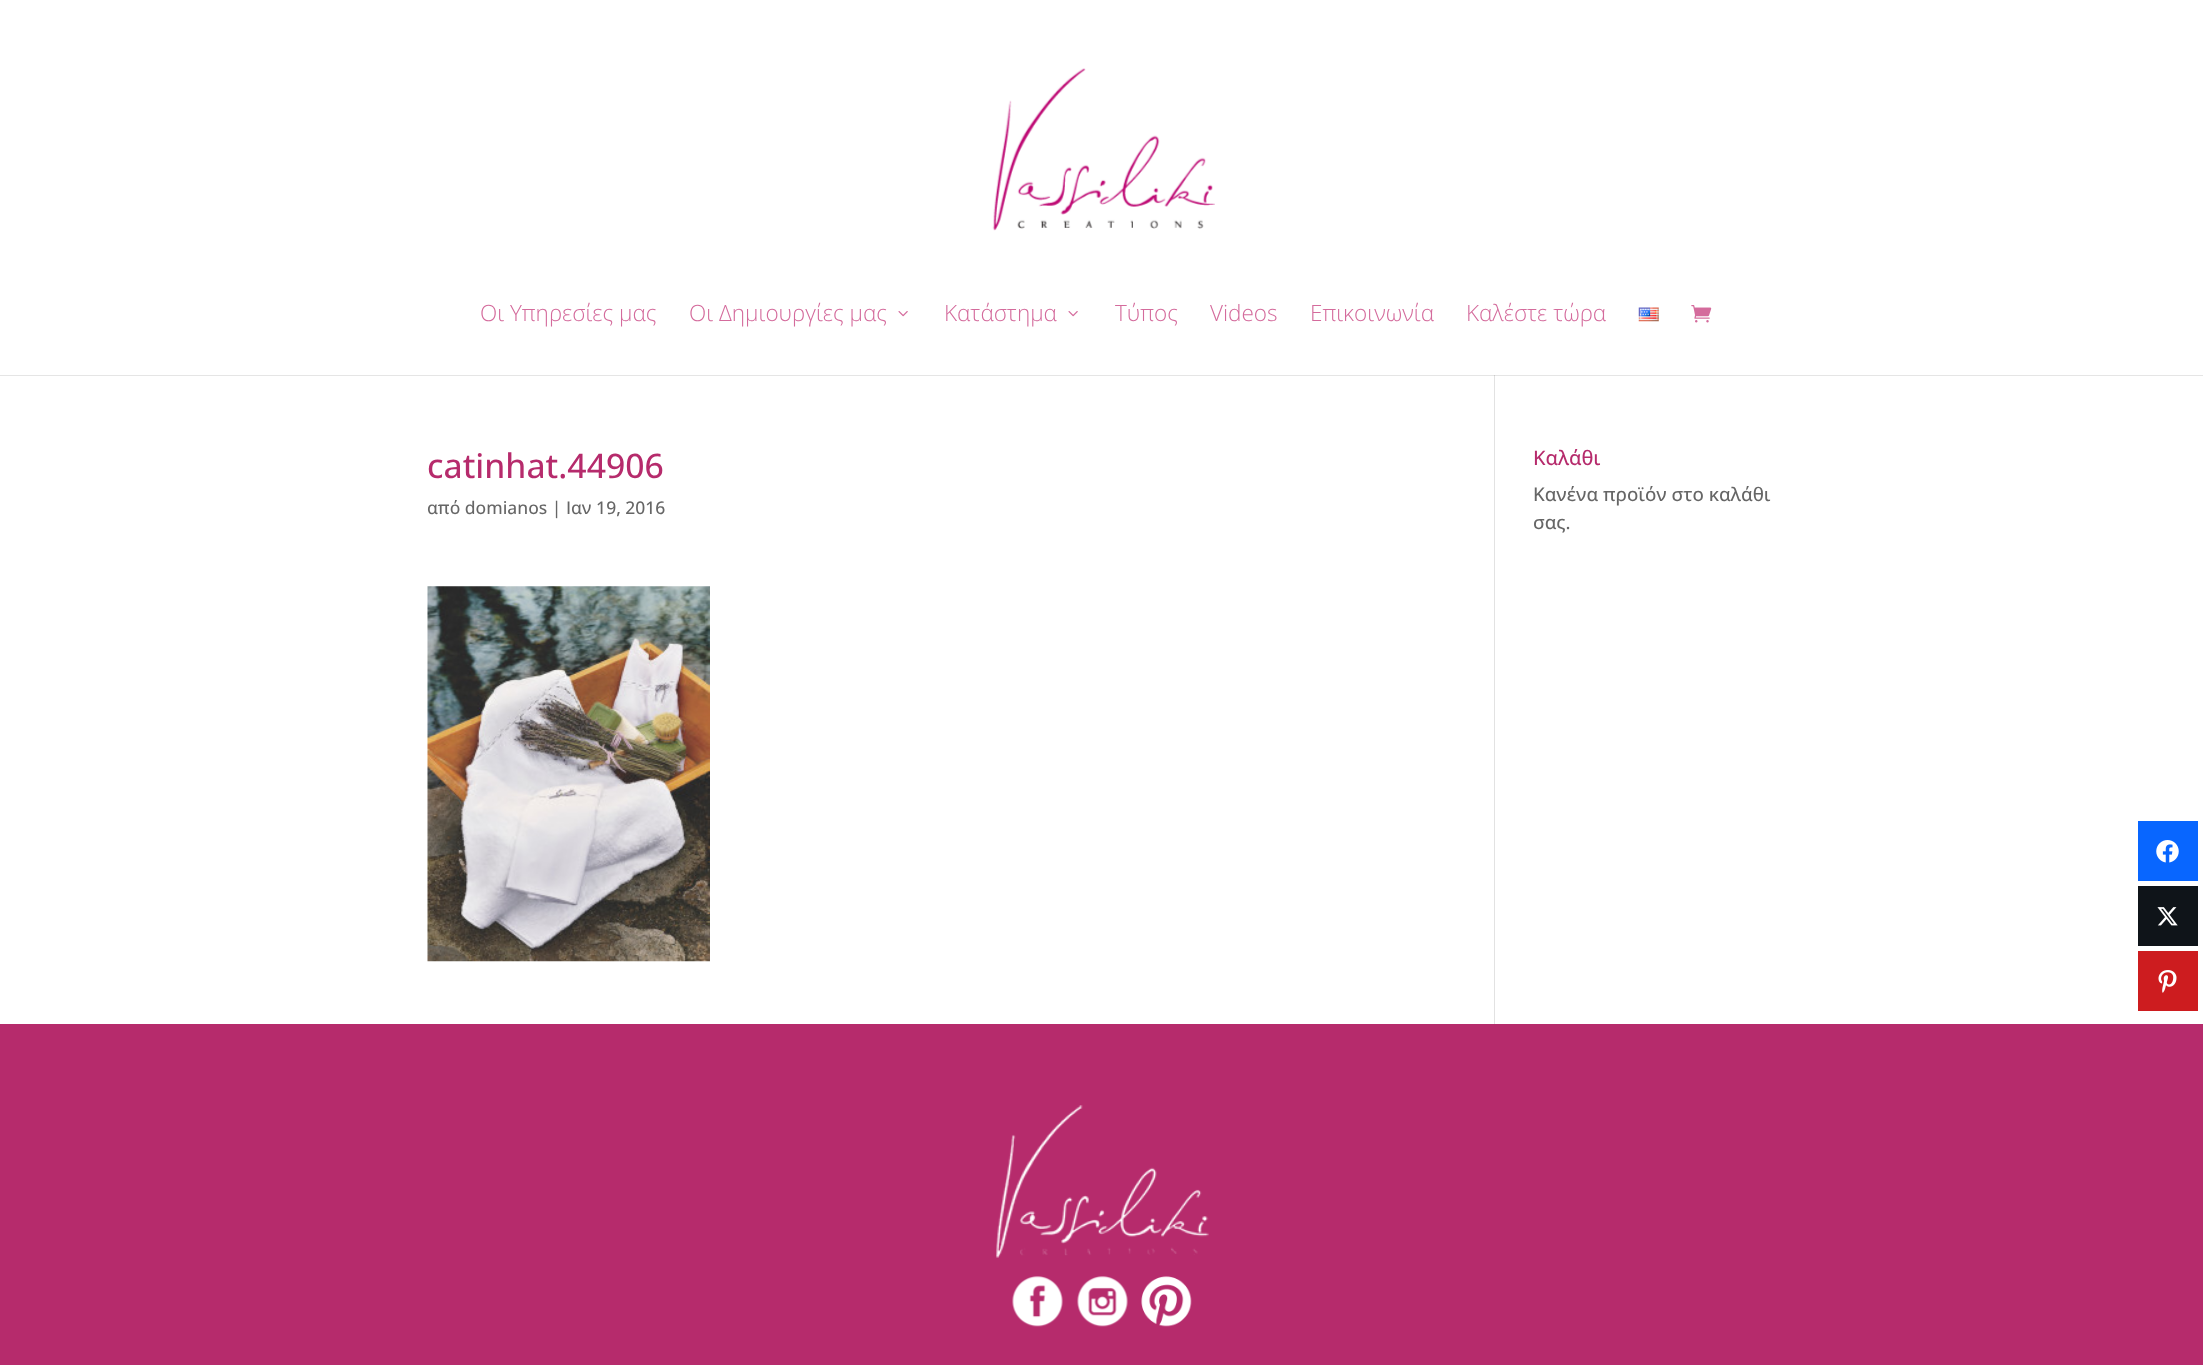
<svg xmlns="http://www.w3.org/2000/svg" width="2203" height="1365">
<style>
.a{font:300 22.5px Open Sans;fill:#d46b9c}
.b{font:500 33.75px Open Sans;fill:#b62b6c}
.c{font:500 17.5px Open Sans;fill:#666}
.d{font:500 20px Open Sans;fill:#b62b6c}
.e{font:500 18.75px Open Sans;fill:#666}
</style>
<rect width="100%" height="100%" fill="#fff"/>
<path fill="#e2e2e2" d="M1494 375h1v649H1494z"/>
<path fill="#0000001a" d="M0 375v1h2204v-375v374z"/>
<image href="1.png" x="992" y="68" width="223" height="163"/>
<image href="2.png" x="898" y="311" width="10" height="6"/>
<image href="2.png" x="1068" y="311" width="10" height="6"/>
<image href="3.png" x="1638" y="307" width="21" height="15"/>
<image href="4.png" x="1691" y="305" width="21" height="18"/>
<image href="5.png" x="427" y="586" width="283" height="376"/>
<path fill="#b62b6c" d="M0 1024h2203v341H0z"/>
<image href="6.png" x="996" y="1105" width="213" height="153"/>
<image href="7.png" x="1012" y="1276" width="51" height="51"/>
<image href="8.png" x="1077" y="1276" width="51" height="51"/>
<image href="9.png" x="1141" y="1276" width="51" height="51"/>
<path fill="#0866ff" d="M2138 821h60v60H2138z"/>
<image href="10.png" x="2156" y="840" width="23" height="23"/>
<path fill="#0f1419" d="M2138 886h60v60H2138z"/>
<image href="11.png" x="2157" y="907" width="21" height="19"/>
<path fill="#cd1c1f" d="M2138 951h60v60H2138z"/>
<image href="12.png" x="2158" y="970" width="19" height="23"/>
<text class="a" x="480" y="321">Οι Yπηρεσίες μας</text>
<text class="a" x="689" y="321">Οι Δημιουργίες μας</text>
<text class="a" x="944" y="321">Κατάστημα</text>
<text class="a" x="1115" y="321">Τύπος</text>
<text class="a" x="1210" y="321">Videos</text>
<text class="a" x="1310" y="321">Επικοινωνία</text>
<text class="a" x="1466" y="321">Καλέστε τώρα</text>
<text class="b" x="427" y="478">catinhat.44906</text>
<text class="c" x="427" y="514">από domianos | Ιαν 19, 2016</text>
<text class="d" x="1533" y="465">Καλάθι</text>
<text class="e" x="1533" y="501">Κανένα προϊόν στο καλάθι</text>
<text class="e" x="1533" y="529">σας.</text>
</svg>
